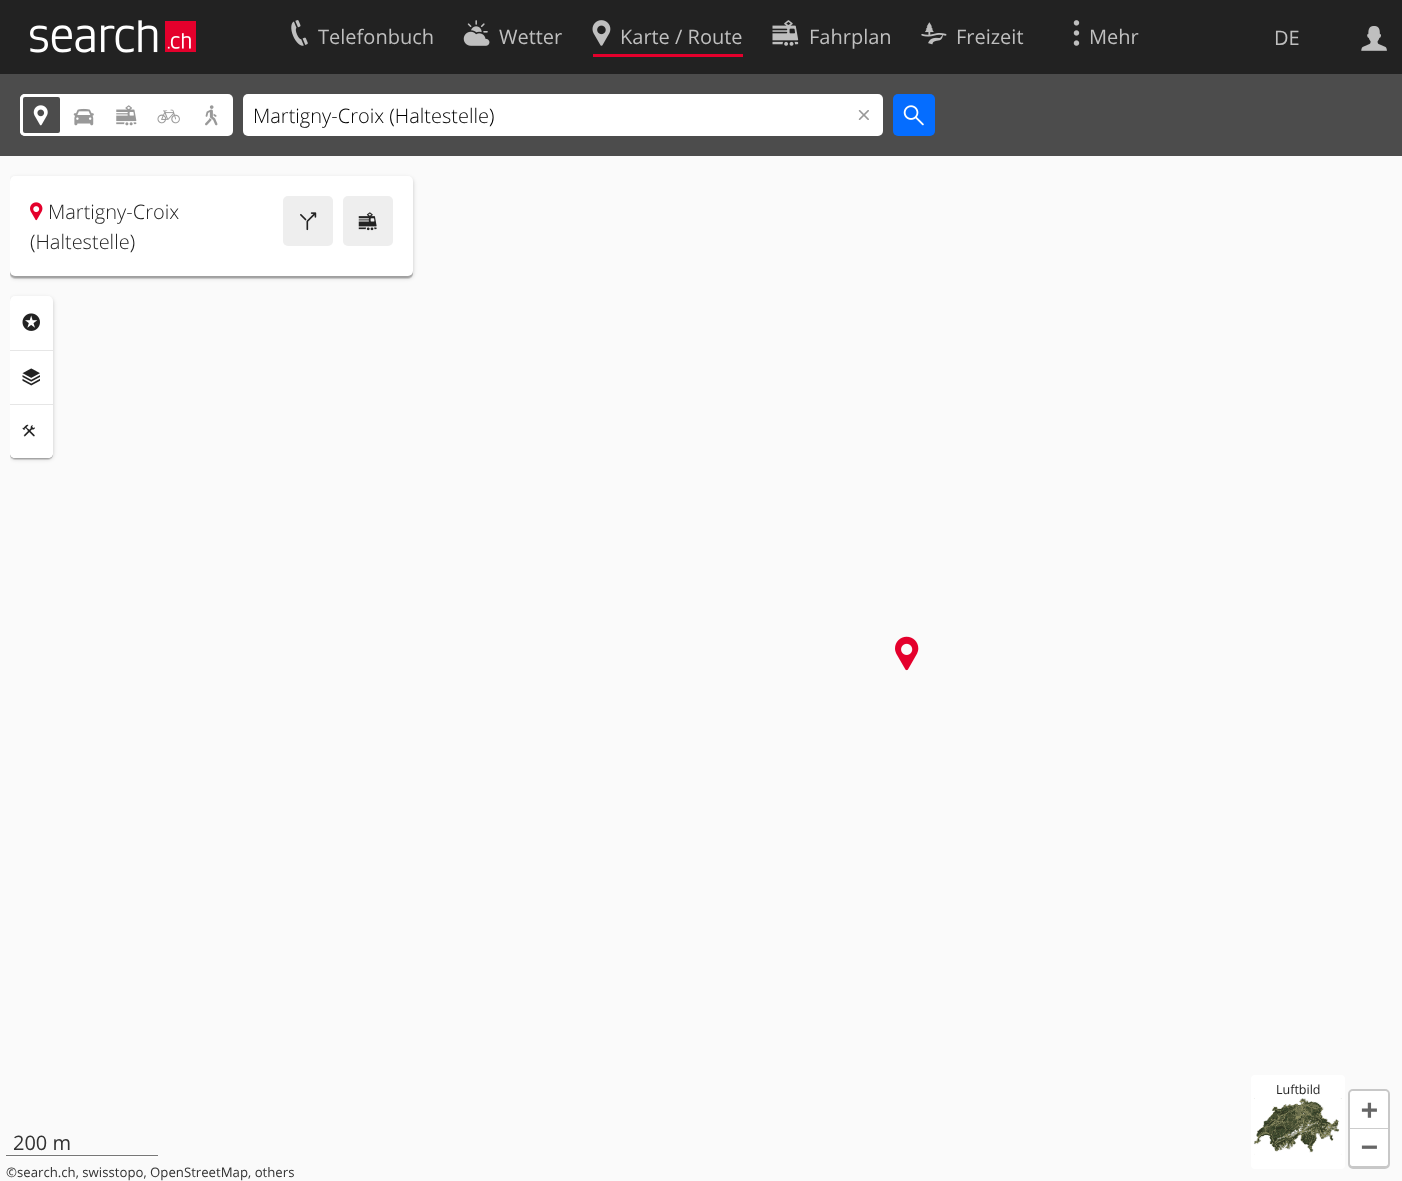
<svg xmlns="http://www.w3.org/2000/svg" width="1402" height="1181">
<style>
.a{font:20px Open Sans;fill:#bfbfbf}
.b{font:300 20px Open Sans;fill:#000}
.c{font:300 20px Open Sans;fill:#222}
.d{font:12.5px Open Sans;fill:#222}
.e{font:bold 28px DejaVu Sans Mono;fill:#666}
.f{font:20px Open Sans;fill:#333}
.g{font:13.2px Open Sans;fill:#333}
</style>
<defs>
<clipPath id="clip1"><path d="M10 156h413v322H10z"/></clipPath>
<clipPath id="clip2"><rect x="10" y="296" width="43" height="162" rx="4"/></clipPath>
</defs>
<rect width="100%" height="100%" fill="#fafafa"/>
<path fill="#222" d="M0 0h1402v74H0z"/>
<image href="1.png" x="30" y="20" width="166" height="33"/>
<image href="2.png" x="291" y="20" width="17" height="26"/>
<image href="3.png" x="463" y="20" width="27" height="26"/>
<path fill="#e4002c" d="M593 54h150v3H593z"/>
<image href="4.png" x="592" y="20" width="19" height="26"/>
<image href="5.png" x="772" y="20" width="27" height="26"/>
<image href="6.png" x="921" y="22" width="26" height="23"/>
<image href="7.png" x="1073" y="20" width="7" height="26"/>
<image href="8.png" x="1361" y="26" width="26" height="25"/>
<path fill="#4c4c4c" d="M0 74h1402v82H0z"/>
<rect fill="#fff" x="20" y="94" width="213" height="42" rx="5"/>
<rect fill="#4c4c4c" stroke="#fff" stroke-width="3" x="21.5" y="95.5" width="40" height="39" rx="3.5"/>
<image href="9.png" x="33" y="105" width="15" height="21"/>
<image href="10.png" x="73" y="108" width="21" height="18"/>
<image href="11.png" x="116" y="105" width="21" height="21"/>
<image href="12.png" x="157" y="109" width="23" height="15"/>
<image href="13.png" x="205" y="105" width="13" height="21"/>
<rect fill="#fff" x="243" y="94" width="640" height="42" rx="5"/>
<image href="14.png" x="858" y="110" width="11" height="10"/>
<rect fill="#056dff" x="893" y="94" width="42" height="42" rx="5"/>
<image href="15.png" x="903" y="105" width="21" height="21"/>
<g clip-path="url(#clip1)">
<rect fill="#00000033" filter="blur(2px)" x="10" y="178" width="403" height="100" rx="5"/>
</g>
<rect fill="#0000001f" filter="blur(0.5px)" x="10" y="179" width="403" height="100" rx="5"/>
<rect fill="#00000024" filter="blur(0.5px)" x="10" y="178" width="403" height="100" rx="5"/>
<rect fill="#fff" x="10" y="176" width="403" height="100" rx="5"/>
<image href="16.png" x="30" y="202" width="13" height="19"/>
<rect fill="#eee" x="283" y="196" width="50" height="50" rx="5"/>
<image href="17.png" x="300" y="212" width="17" height="19"/>
<rect fill="#eee" x="343" y="196" width="50" height="50" rx="5"/>
<image href="18.png" x="358" y="212" width="19" height="19"/>
<g clip-path="url(#clip1)">
<rect fill="#00000033" filter="blur(2px)" x="10" y="298" width="43" height="161" rx="5"/>
</g>
<rect fill="#0000001f" filter="blur(0.5px)" x="10" y="299" width="43" height="161" rx="5"/>
<rect fill="#00000024" filter="blur(0.5px)" x="10" y="298" width="43" height="161" rx="5"/>
<rect fill="#fff" x="10" y="296" width="43" height="162" rx="5"/>
<path fill="#e6e6e6" d="M10 350h43v1H10z"/>
<image href="19.png" x="22" y="313" width="18" height="18"/>
<path fill="#e6e6e6" d="M10 404h43v1H10z"/>
<image href="20.png" x="22" y="368" width="18" height="18"/>
<g clip-path="url(#clip2)">
<path fill="#fff" d="M10 405h43v48c0 3-2 5-5 5h-33c-3 0-5-2-5-5z"/>
</g>
<image href="21.png" x="22" y="424" width="13" height="13"/>
<rect fill="#fff" x="1251" y="1075" width="94" height="94" rx="4"/>
<image href="22.png" x="1253" y="1098" width="89" height="57"/>
<image href="23.png" x="895" y="636" width="24" height="35"/>
<rect fill="none" stroke="#c8c8c8" stroke-width="3" x="1349.5" y="1090.5" width="39" height="77" rx="3.5"/>
<path fill="#fff" d="M1352.5 1091h33c1.5 0 2.5 1 2.5 2.5v35.5h-38v-35.5c0-1.5 1-2.5 2.5-2.5z"/>
<path fill="#ccc" d="M1350 1128h38v1H1350z"/>
<path fill="#fff" d="M1350 1129h38v34.5c0 1.5-1 2.5-2.5 2.5h-33c-1.5 0-2.5-1-2.5-2.5z"/>
<path fill="#fdfdfd" d="M6 1131v27h152v-27v25h-152z"/>
<path fill="#fdfdfd" d="M6 1154h152v1H6z"/>
<path fill="#777" d="M6 1155h152v1H6z"/>
<text class="a" x="318" y="44">Telefonbuch</text>
<text class="a" x="499" y="44">Wetter</text>
<text class="a" x="620" y="44">Karte / Route</text>
<text class="a" x="809" y="44">Fahrplan</text>
<text class="a" x="956" y="44">Freizeit</text>
<text class="a" x="1089" y="44">Mehr</text>
<text class="a" x="1274" y="45">DE</text>
<text class="b" x="253" y="123">Martigny-Croix (Haltestelle)</text>
<text class="c" x="48" y="219">Martigny-Croix</text>
<text class="c" x="30" y="249">(Haltestelle)</text>
<text class="d" x="1276" y="1094">Luftbild</text>
<text class="e" x="1361" y="1119">+</text>
<text class="e" x="1361" y="1156">−</text>
<text class="f" x="13" y="1150">200 m</text>
<text class="g" x="6" y="1177">©search.ch, swisstopo, OpenStreetMap, others</text>
</svg>
